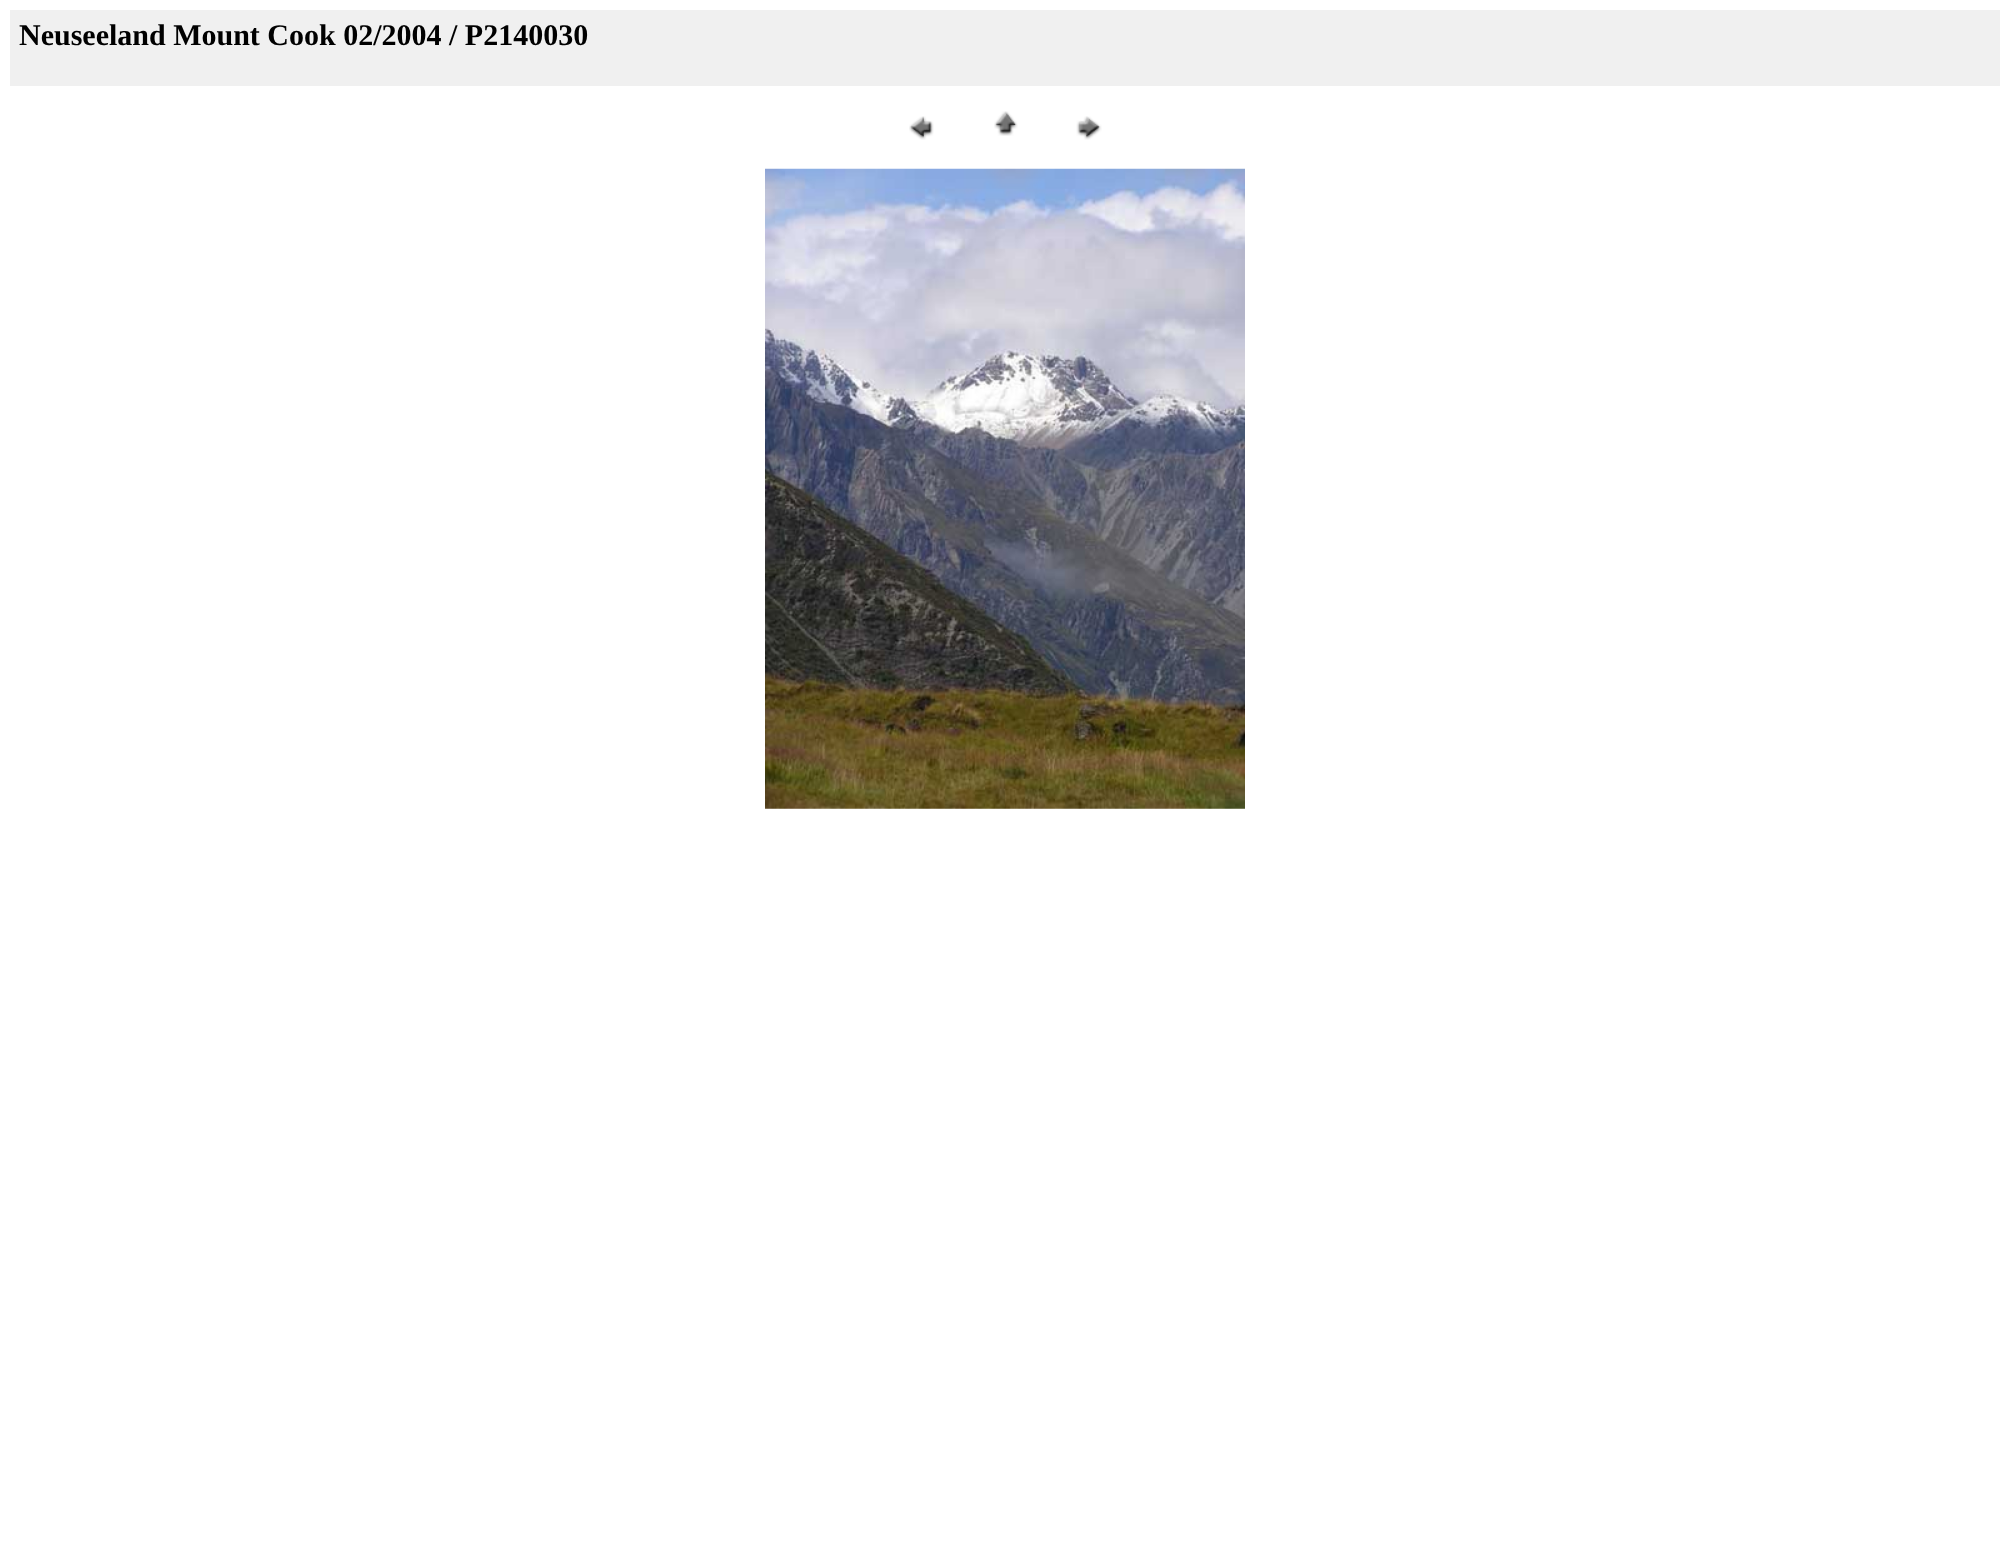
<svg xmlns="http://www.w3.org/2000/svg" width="2009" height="1563">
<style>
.a{font:bold 30px Liberation Serif;fill:#000}
</style>
<rect width="100%" height="100%" fill="#fff"/>
<path fill="#f0f0f0" d="M10 10h1990v76H10z"/>
<image href="1.png" x="909" y="116" width="25" height="24"/>
<image href="2.png" x="994" y="111" width="24" height="25"/>
<image href="3.png" x="1076" y="116" width="26" height="24"/>
<image href="4.png" x="765" y="168" width="480" height="641"/>
<text class="a" x="19" y="45">Neuseeland Mount Cook 02/2004 / P2140030</text>
</svg>
